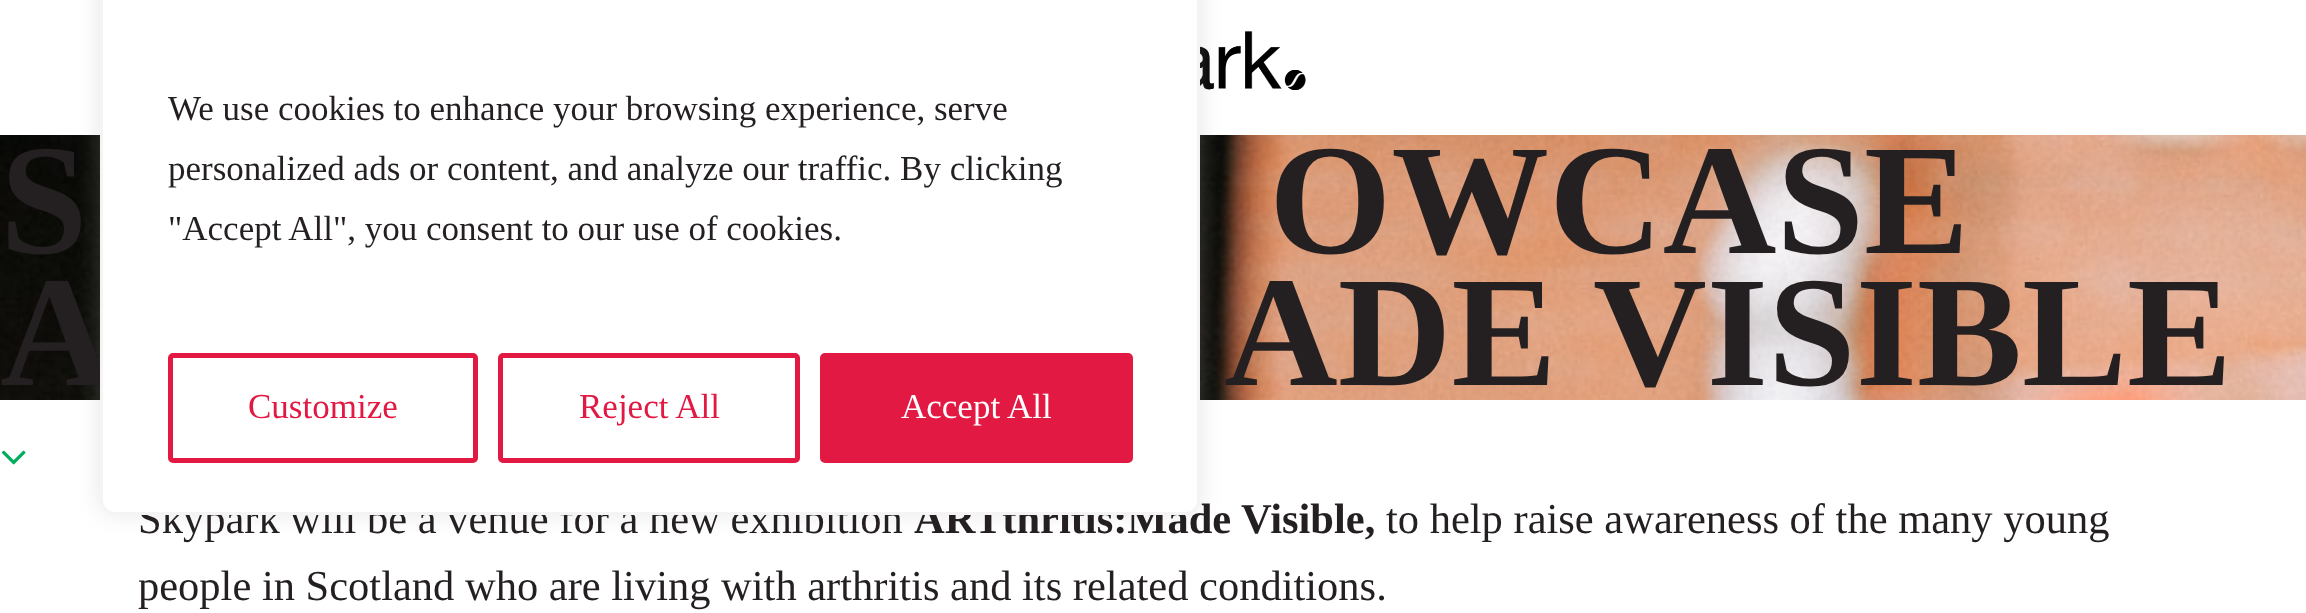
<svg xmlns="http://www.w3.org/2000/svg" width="2306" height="613">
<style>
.a{font:bold 157.5px Liberation Serif;fill:#241f21}
.b{font:42.5px Liberation Serif;fill:#241f21}
.c{font:bold 42.5px Liberation Serif;fill:#241f21}
.d{font:35px Liberation Serif;fill:#fff}
.e{font:35px Liberation Serif;fill:#e21943}
.f{font:35px Liberation Serif;fill:#241f21}
</style>
<rect width="100%" height="100%" fill="#fff"/>
<image href="1.png" x="1200" y="31" width="106" height="59"/>
<image href="2.png" x="0" y="135" width="2306" height="265"/>
<rect fill="#acabab4d" filter="blur(12.5px)" x="100" y="-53" width="1100" height="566" rx="15"/>
<image href="3.png" x="1" y="450" width="25" height="15"/>
<text class="a" x="0" y="253">S</text>
<text class="a" x="1269" y="253">OWCASE</text>
<text class="a" x="0" y="385">A</text>
<text class="a" x="1224" y="385">ADE VISIBLE</text>
<text class="b" x="138" y="533">Skypark will be a venue for a new exhibition</text>
<text class="c" x="914" y="533">ARTthritis:Made Visible,</text>
<rect fill="#fff" stroke="#f4f4f4" stroke-width="3" x="101.5" y="-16.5" width="1097" height="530" rx="13.5"/>
<rect fill="#e21943" stroke="#e21943" stroke-width="5" x="822.5" y="355.5" width="308" height="105" rx="2.5"/>
<text class="d" x="901" y="418">Accept All</text>
<rect fill="none" stroke="#e21943" stroke-width="5" x="500.5" y="355.5" width="297" height="105" rx="2.5"/>
<text class="e" x="579" y="418">Reject All</text>
<rect fill="none" stroke="#e21943" stroke-width="5" x="170.5" y="355.5" width="305" height="105" rx="2.5"/>
<text class="e" x="248" y="418">Customize</text>
<text class="f" x="168" y="240">"Accept All", you consent to our use of cookies.</text>
<text class="f" x="168" y="180">personalized ads or content, and analyze our traffic. By clicking</text>
<text class="f" x="168" y="120">We use cookies to enhance your browsing experience, serve</text>
<text class="b" x="1386" y="533">to help raise awareness of the many young</text>
<text class="b" x="138" y="600">people in Scotland who are living with arthritis and its related conditions.</text>
</svg>
